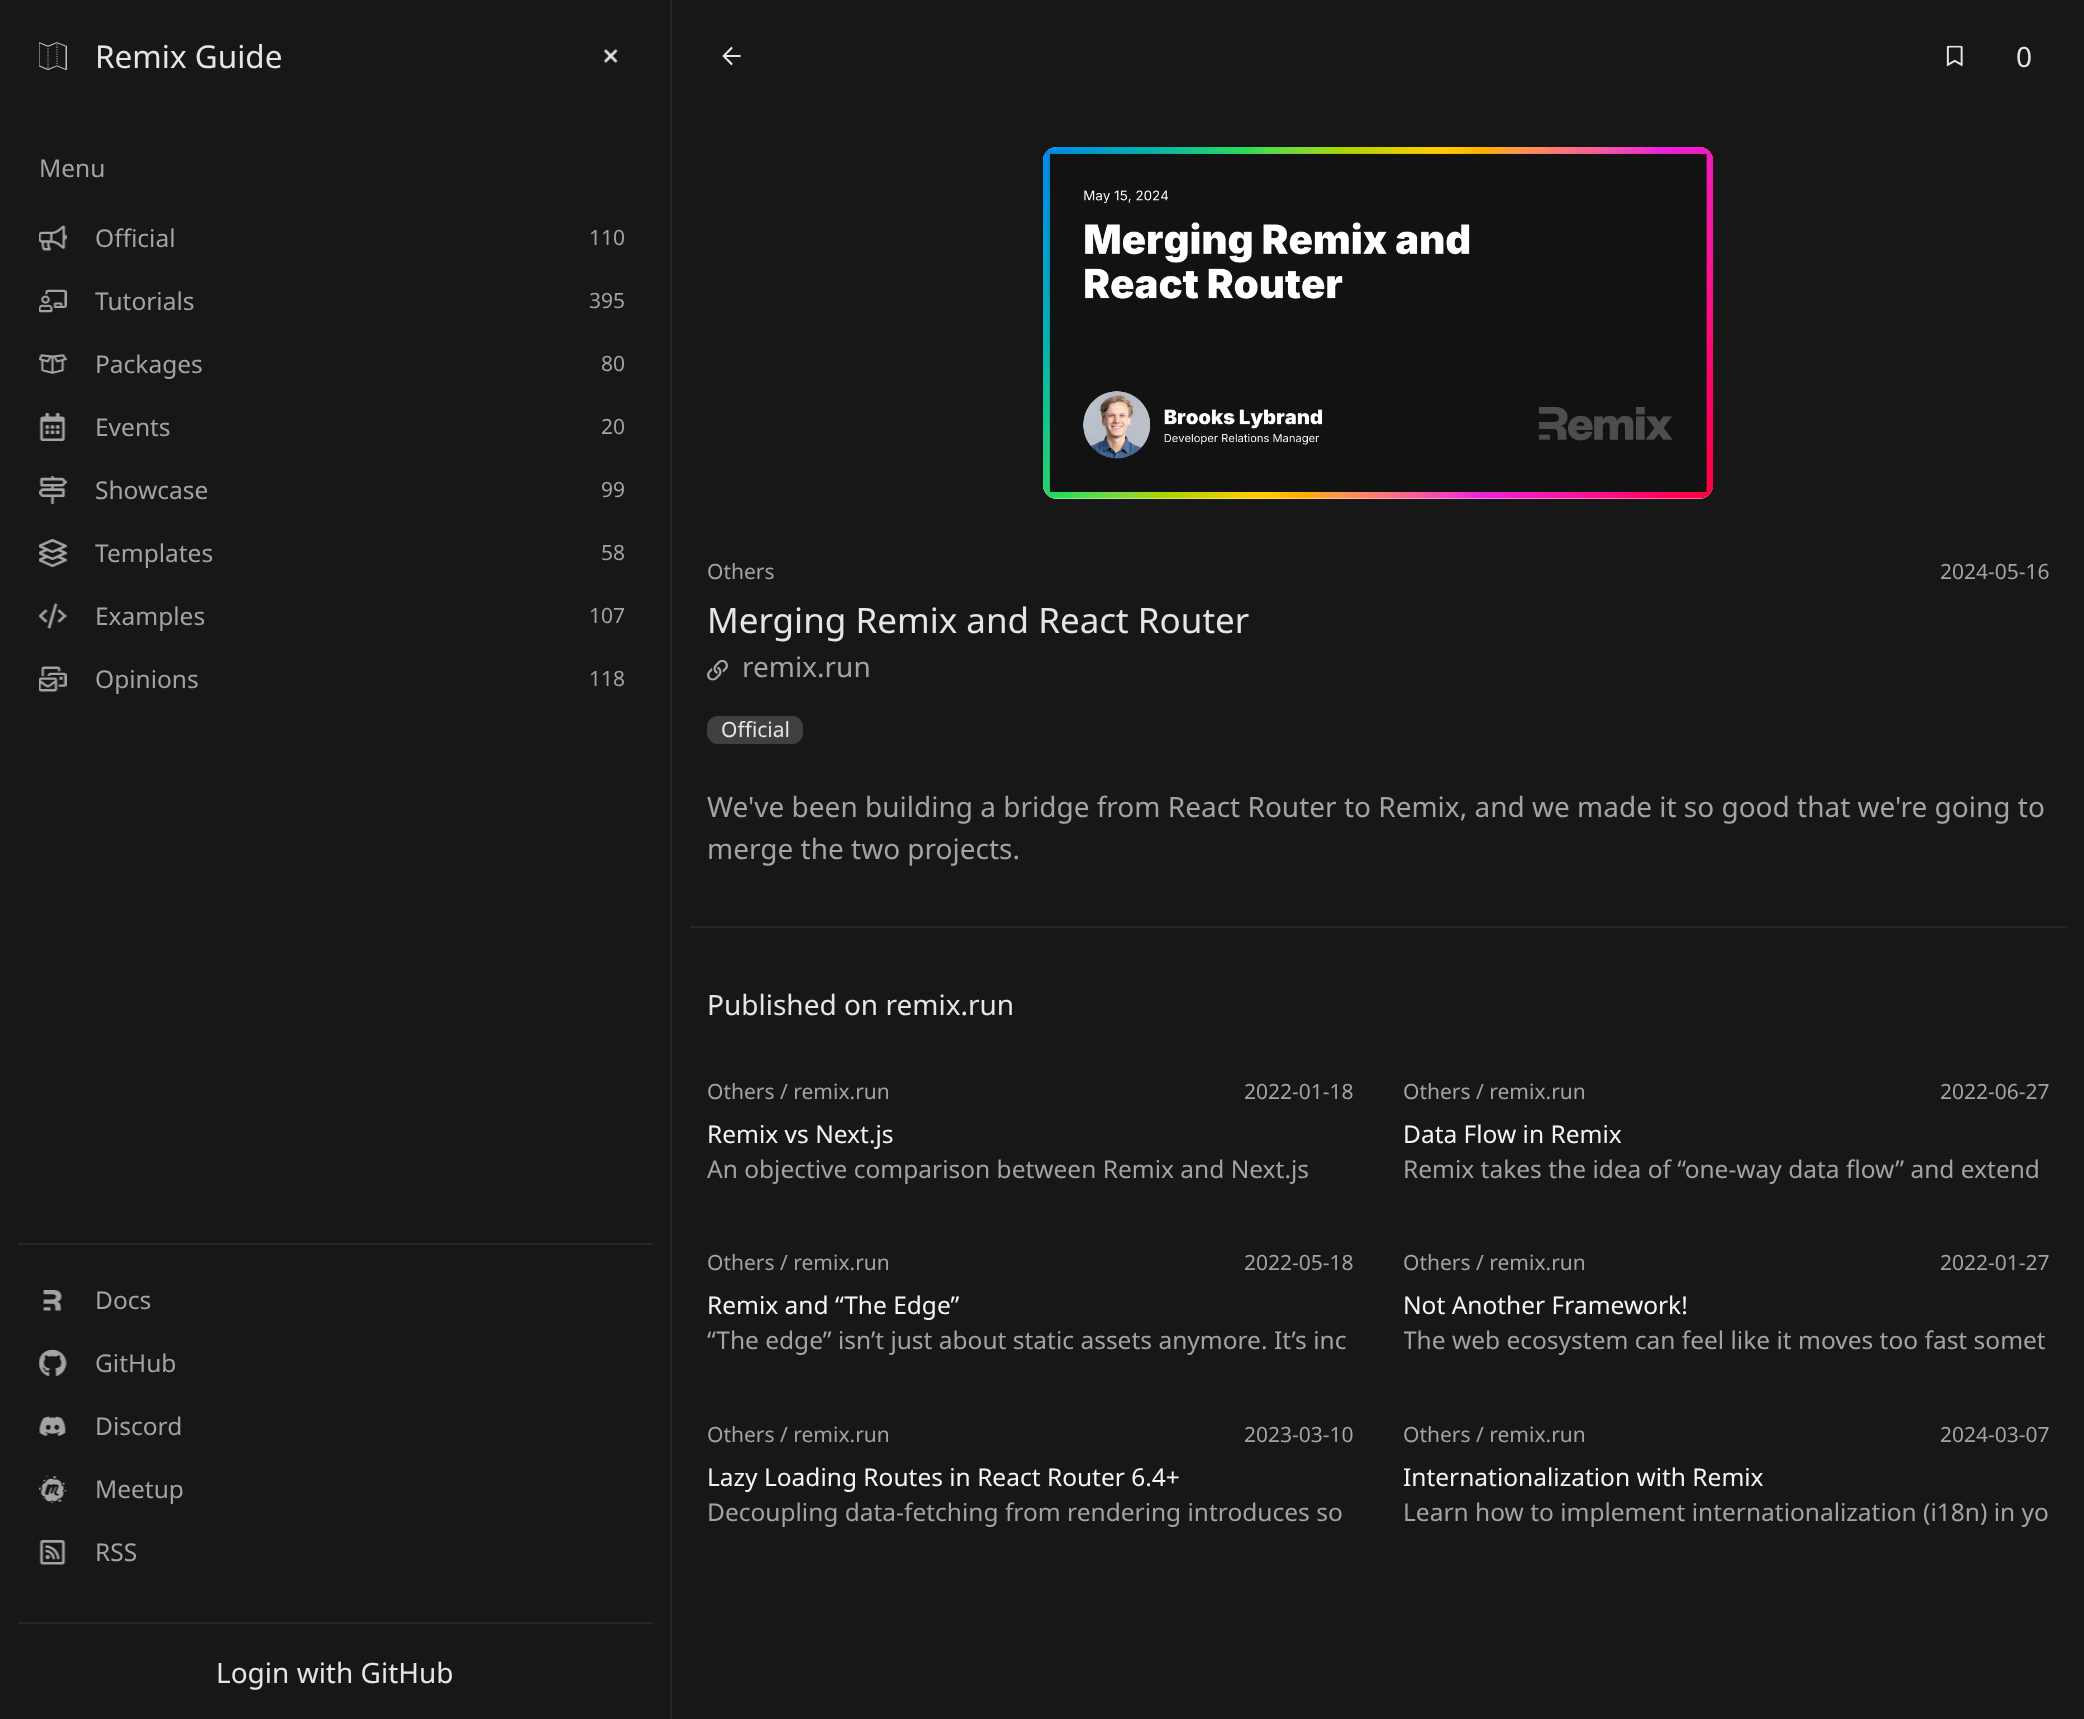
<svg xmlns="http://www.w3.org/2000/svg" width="2084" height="1719">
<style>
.a{font:31.5px Noto Sans;fill:#e5e5e5}
.b{font:24.5px Noto Sans;fill:#a3a3a3}
.c{font:21px Noto Sans;fill:#a3a3a3}
.d{font:28px Noto Sans;fill:#e5e5e5}
.e{font:35px Noto Sans;fill:#e5e5e5}
.f{font:28px Noto Sans;fill:#a3a3a3}
.g{font:21px Noto Sans;fill:#e5e5e5}
.h{font:24.5px Noto Sans;fill:#f5f5f5}
</style>
<defs>
<clipPath id="clip1"><path d="M1404 1323h645v35H1404z"/></clipPath>
<clipPath id="clip2"><path d="M1404 1460h645v35H1404z"/></clipPath>
</defs>
<rect width="100%" height="100%" fill="#171717"/>
<image href="1.png" x="39" y="42" width="28" height="28"/>
<image href="2.png" x="604" y="49" width="14" height="14"/>
<image href="3.png" x="39" y="225" width="28" height="26"/>
<image href="4.png" x="39" y="289" width="28" height="24"/>
<image href="5.png" x="39" y="354" width="28" height="20"/>
<image href="6.png" x="39" y="413" width="27" height="28"/>
<image href="7.png" x="39" y="476" width="28" height="28"/>
<image href="8.png" x="39" y="539" width="28" height="28"/>
<image href="9.png" x="39" y="603" width="28" height="26"/>
<image href="10.png" x="39" y="666" width="28" height="26"/>
<path fill="#262626" d="M18 1243h635v2H18z"/>
<image href="11.png" x="43" y="1290" width="19" height="21"/>
<image href="12.png" x="39" y="1349" width="28" height="28"/>
<image href="13.png" x="39" y="1416" width="27" height="20"/>
<image href="14.png" x="39" y="1475" width="28" height="28"/>
<image href="15.png" x="39" y="1540" width="27" height="25"/>
<path fill="#262626" d="M18 1622h635v2H18z"/>
<path fill="#262626" d="M670 0h2v1719H670z"/>
<image href="16.png" x="722" y="47" width="19" height="18"/>
<image href="17.png" x="1946" y="45" width="17" height="22"/>
<rect fill="#fff" x="1043" y="147" width="670" height="352" rx="14"/>
<image href="18.png" x="1043" y="147" width="671" height="352"/>
<image href="19.png" x="707" y="660" width="21" height="21"/>
<rect fill="#404040" x="707" y="716" width="96" height="28" rx="11"/>
<path fill="#262626" d="M690 926h1377v2H690z"/>
<text class="a" x="95" y="68">Remix Guide</text>
<text class="b" x="39" y="177">Menu</text>
<text class="b" x="95" y="247">Official</text>
<text class="c" x="589" y="245">110</text>
<text class="b" x="95" y="310">Tutorials</text>
<text class="c" x="589" y="308">395</text>
<text class="b" x="95" y="373">Packages</text>
<text class="c" x="601" y="371">80</text>
<text class="b" x="95" y="436">Events</text>
<text class="c" x="601" y="434">20</text>
<text class="b" x="95" y="499">Showcase</text>
<text class="c" x="601" y="497">99</text>
<text class="b" x="95" y="562">Templates</text>
<text class="c" x="601" y="560">58</text>
<text class="b" x="95" y="625">Examples</text>
<text class="c" x="589" y="623">107</text>
<text class="b" x="95" y="688">Opinions</text>
<text class="c" x="589" y="686">118</text>
<text class="b" x="95" y="1309">Docs</text>
<text class="b" x="95" y="1372">GitHub</text>
<text class="b" x="95" y="1435">Discord</text>
<text class="b" x="95" y="1498">Meetup</text>
<text class="b" x="95" y="1561">RSS</text>
<text class="d" x="216" y="1683">Login with GitHub</text>
<text class="d" x="2016" y="67">0</text>
<text class="c" x="707" y="579">Others</text>
<text class="c" x="1940" y="579">2024-05-16</text>
<text class="e" x="707" y="633">Merging Remix and React Router</text>
<text class="f" x="742" y="677">remix.run</text>
<text class="g" x="721" y="737">Official</text>
<text class="f" x="707" y="817">We've been building a bridge from React Router to Remix, and we made it so good that we're going to</text>
<text class="f" x="707" y="859">merge the two projects.</text>
<text class="d" x="707" y="1015">Published on remix.run</text>
<text class="c" x="707" y="1099">Others / remix.run</text>
<text class="c" x="1244" y="1099">2022-01-18</text>
<text class="h" x="707" y="1143">Remix vs Next.js</text>
<text class="b" x="707" y="1178">An objective comparison between Remix and Next.js</text>
<text class="c" x="1403" y="1099">Others / remix.run</text>
<text class="c" x="1940" y="1099">2022-06-27</text>
<text class="h" x="1403" y="1143">Data Flow in Remix</text>
<text class="b" x="1403" y="1178">Remix takes the idea of “one-way data flow” and extend</text>
<text class="c" x="707" y="1270">Others / remix.run</text>
<text class="c" x="1244" y="1270">2022-05-18</text>
<text class="h" x="707" y="1314">Remix and “The Edge”</text>
<text class="b" x="707" y="1349">“The edge” isn’t just about static assets anymore. It’s inc</text>
<text class="c" x="1403" y="1270">Others / remix.run</text>
<text class="c" x="1940" y="1270">2022-01-27</text>
<text class="h" x="1403" y="1314">Not Another Framework!</text>
<g clip-path="url(#clip1)">
<text class="b" x="1403" y="1349">The web ecosystem can feel like it moves too fast somet</text>
</g>
<text class="c" x="707" y="1442">Others / remix.run</text>
<text class="c" x="1244" y="1442">2023-03-10</text>
<text class="h" x="707" y="1486">Lazy Loading Routes in React Router 6.4+</text>
<text class="b" x="707" y="1521">Decoupling data-fetching from rendering introduces so</text>
<text class="c" x="1403" y="1442">Others / remix.run</text>
<text class="c" x="1940" y="1442">2024-03-07</text>
<g clip-path="url(#clip2)">
<text class="h" x="1403" y="1486">Internationalization with Remix</text>
</g>
<text class="b" x="1403" y="1521">Learn how to implement internationalization (i18n) in yo</text>
</svg>
